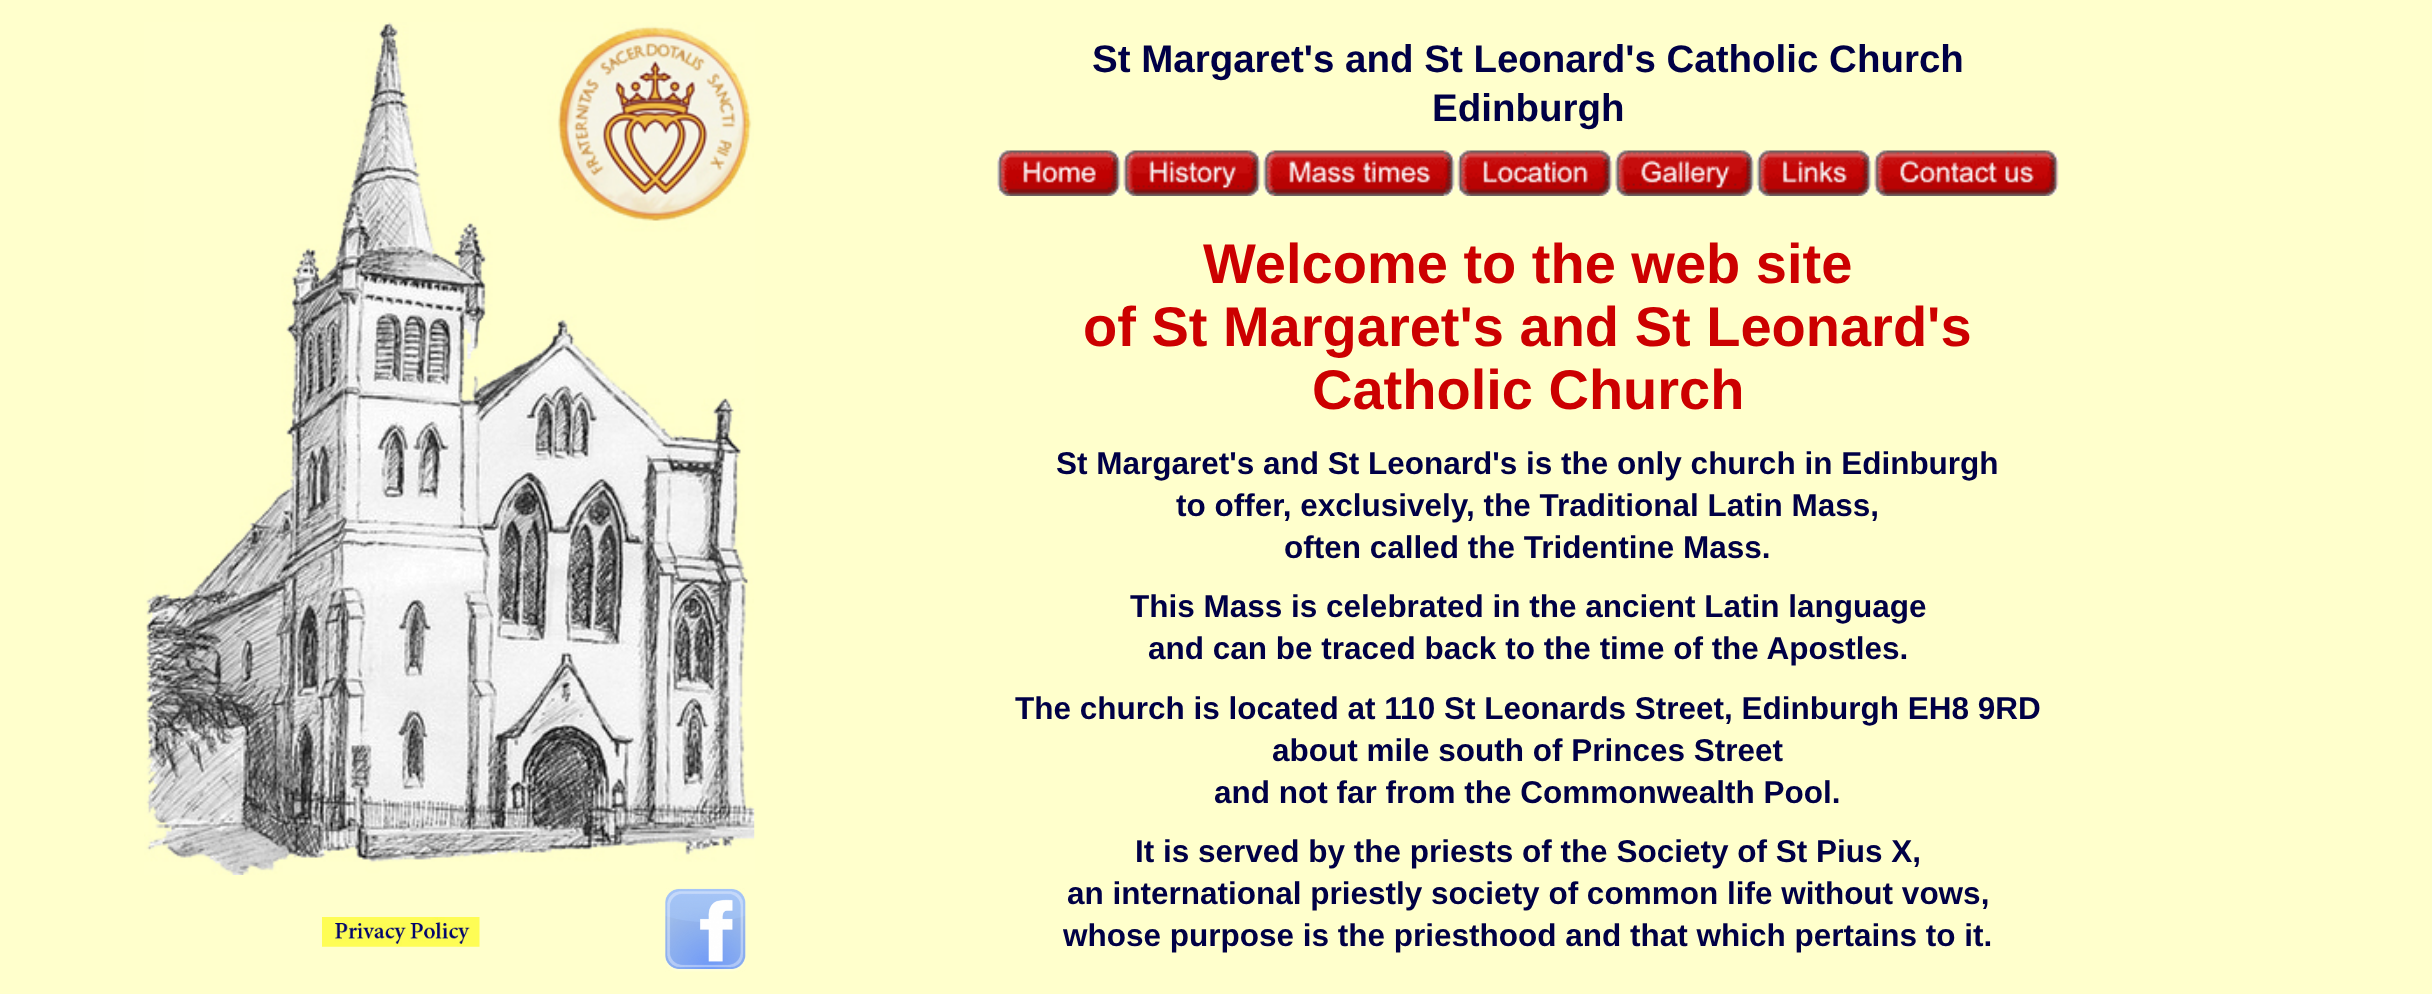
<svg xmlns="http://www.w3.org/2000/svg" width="2432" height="994">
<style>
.a{font:bold 38.5px Liberation Sans;fill:#000046}
.b{font:bold 56px Liberation Sans;fill:#c00}
.c{font:bold 31.5px Liberation Sans;fill:#000046}
</style>
<rect width="100%" height="100%" fill="#ffc"/>
<image href="1.png" x="144" y="22" width="611" height="853"/>
<image href="2.png" x="322" y="917" width="158" height="30"/>
<image href="3.png" x="665" y="888" width="81" height="84"/>
<image href="4.png" x="997" y="150" width="124" height="46"/>
<image href="5.png" x="1123" y="150" width="138" height="46"/>
<image href="6.png" x="1263" y="150" width="192" height="46"/>
<image href="7.png" x="1457" y="150" width="156" height="46"/>
<image href="8.png" x="1615" y="150" width="139" height="46"/>
<image href="9.png" x="1756" y="150" width="116" height="46"/>
<image href="10.png" x="1874" y="150" width="185" height="46"/>
<text class="a" x="1092" y="72">St Margaret's and St Leonard's Catholic Church</text>
<text class="a" x="1432" y="121">Edinburgh</text>
<text class="b" x="1203" y="283">Welcome to the web site</text>
<text class="b" x="1083" y="346">of St Margaret's and St Leonard's</text>
<text class="b" x="1312" y="409">Catholic Church</text>
<text class="c" x="1056" y="474">St Margaret's and St Leonard's is the only church in Edinburgh</text>
<text class="c" x="1176" y="516">to offer, exclusively, the Traditional Latin Mass,</text>
<text class="c" x="1284" y="558">often called the Tridentine Mass.</text>
<text class="c" x="1130" y="617">This Mass is celebrated in the ancient Latin language</text>
<text class="c" x="1148" y="659">and can be traced back to the time of the Apostles.</text>
<text class="c" x="1015" y="719">The church is located at 110 St Leonards Street, Edinburgh EH8 9RD</text>
<text class="c" x="1272" y="761">about mile south of Princes Street</text>
<text class="c" x="1214" y="803">and not far from the Commonwealth Pool.</text>
<text class="c" x="1135" y="862">It is served by the priests of the Society of St Pius X,</text>
<text class="c" x="1067" y="904">an international priestly society of common life without vows,</text>
<text class="c" x="1063" y="946">whose purpose is the priesthood and that which pertains to it.</text>
</svg>
